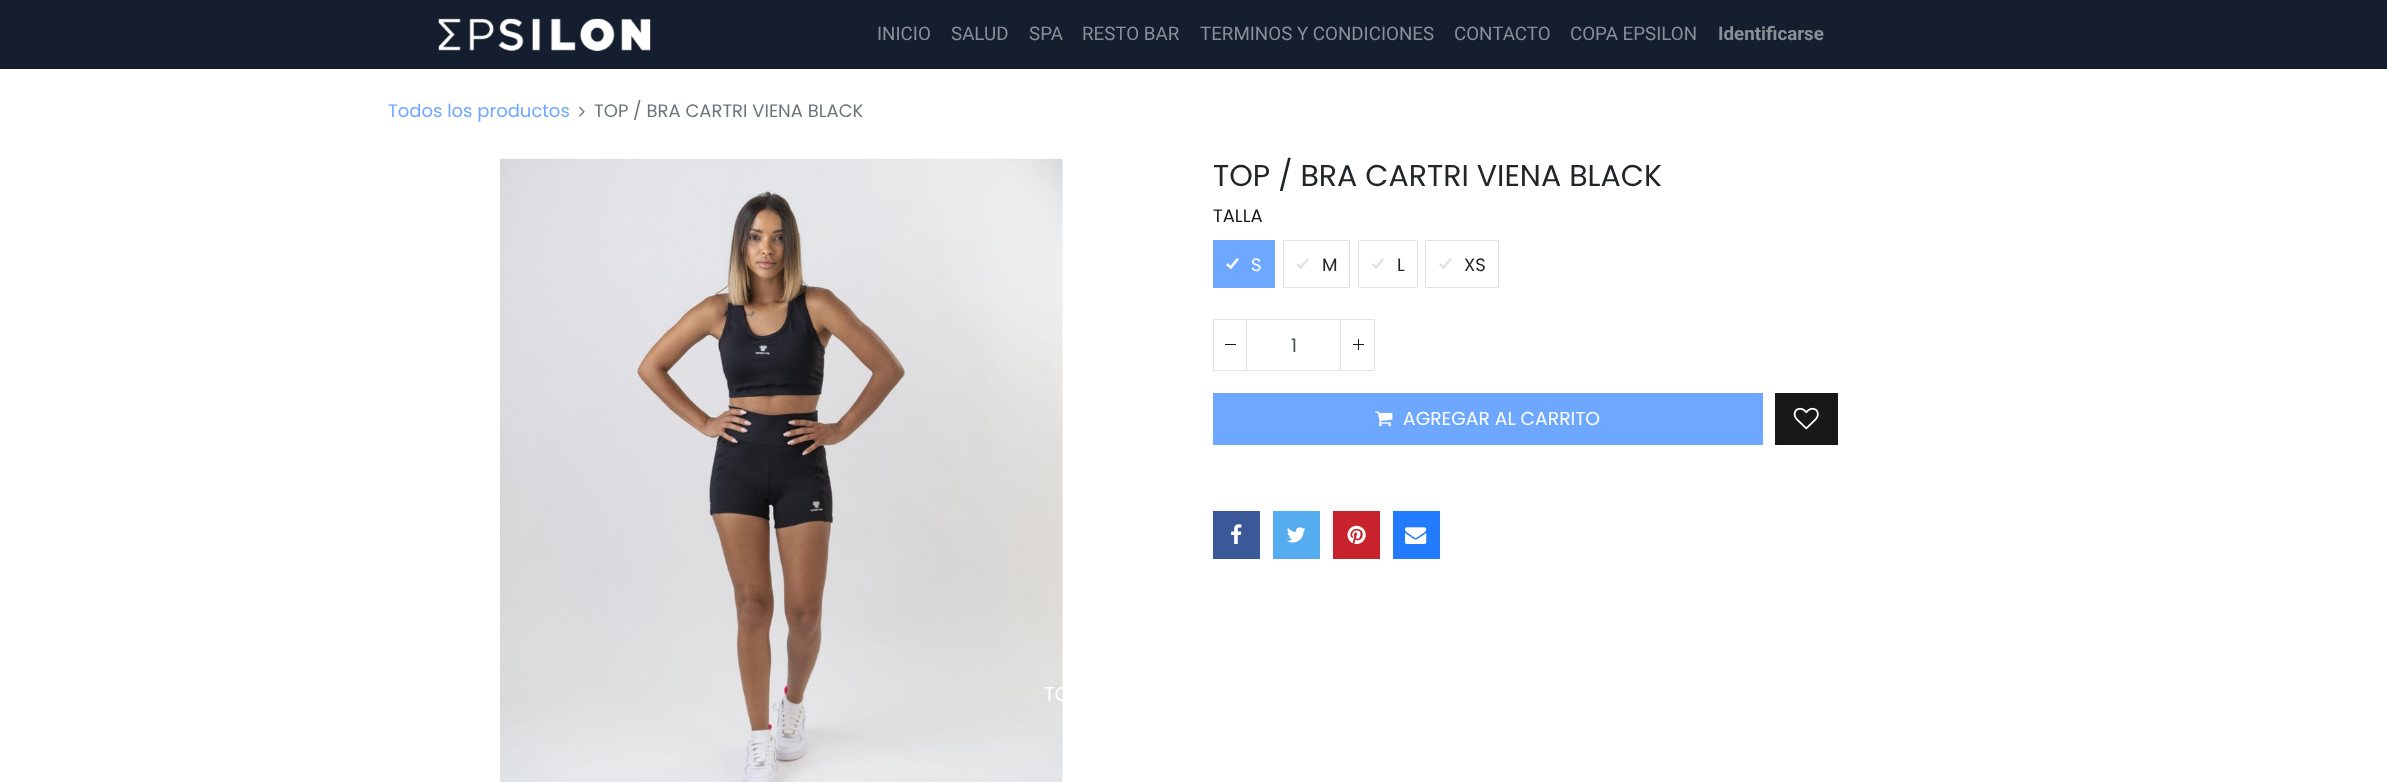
<svg xmlns="http://www.w3.org/2000/svg" width="2387" height="782">
<style>
.a{font:18.75px Roboto;fill:#8a8f97}
.b{font:bold 18.75px Roboto;fill:#8a8f97}
.c{font:18px Poppins;fill:#6ea8fe}
.d{font:18px Poppins;fill:#6c757d}
.e{font:30px Poppins;fill:#212529}
.f{font:18px Poppins;fill:#181818}
.g{font:18px Poppins;fill:#fff}
.h{font:18px Poppins;fill:#212529}
.i{font:18.75px Poppins;fill:#495057}
.j{font:18.75px Poppins;fill:#fff}
.k{font:20px Poppins;fill:#fff}
</style>
<rect width="100%" height="100%" fill="#fff"/>
<path fill="#141e2e" d="M0 0h2387v69H0z"/>
<image href="1.png" x="438" y="18" width="213" height="34"/>
<image href="2.png" x="578" y="106" width="7" height="11"/>
<image href="3.png" x="500" y="158" width="563" height="624"/>
<path fill="#6ea8fe" d="M1213 240h62v48H1213z"/>
<path fill="#fff" d="M1229 267.5l8-9.5l2 1.5l-8 9.5z"/>
<path fill="#fff" d="M1226 265l1.5-2l5 4.5l-1.5 1.5z"/>
<path fill="none" stroke="#dee2e6" d="M1283.5 240.5h66v47H1283.5z"/>
<path fill="#dee2e6" d="M1299 267.5l8.5-9.5l1.5 1.5l-8 9.5z"/>
<path fill="#dee2e6" d="M1296.5 265l1.5-2l5 4.5l-2 1.5z"/>
<path fill="none" stroke="#dee2e6" d="M1358.5 240.5h59v47H1358.5z"/>
<path fill="#dee2e6" d="M1374.5 267.5l8-9.5l2 1.5l-8.5 9.5z"/>
<path fill="#dee2e6" d="M1371.5 265l1.5-2l5 4.5l-2 1.5z"/>
<path fill="none" stroke="#dee2e6" d="M1425.5 240.5h73v47H1425.5z"/>
<path fill="#dee2e6" d="M1442 267.5l8-9.5l2 1.5l-8 9.5z"/>
<path fill="#dee2e6" d="M1439 265l1.5-2l5 4.5l-1.5 1.5z"/>
<path fill="none" stroke="#dee2e6" d="M1213.5 319.5h161v51H1213.5z"/>
<path fill="#dee2e6" d="M1246 320h1v50H1246z"/>
<path fill="#181818" d="M1225 344h11v1H1225z"/>
<path fill="#dee2e6" d="M1340 320h1v50H1340z"/>
<path fill="#181818" d="M1353 344h11v1H1353z"/>
<path fill="#181818" d="M1358 339h1v11H1358z"/>
<path fill="#6ea8fe" d="M1213 393h550v52H1213z"/>
<image href="4.png" x="1375" y="411" width="18" height="16"/>
<path fill="#181818" d="M1775 393h63v52H1775z"/>
<image href="5.png" x="1793" y="407" width="26" height="23"/>
<path fill="#3b5999" d="M1213 511h47v48H1213z"/>
<image href="6.png" x="1231" y="524" width="11" height="20"/>
<path fill="#55acee" d="M1273 511h47v48H1273z"/>
<image href="7.png" x="1287" y="527" width="19" height="16"/>
<path fill="#c8232c" d="M1333 511h47v48H1333z"/>
<image href="8.png" x="1347" y="525" width="19" height="19"/>
<path fill="#227afd" d="M1393 511h47v48H1393z"/>
<image href="9.png" x="1405" y="527" width="22" height="17"/>
<text class="a" x="877" y="40">INICIO</text>
<text class="a" x="951" y="40">SALUD</text>
<text class="a" x="1029" y="40">SPA</text>
<text class="a" x="1082" y="40">RESTO BAR</text>
<text class="a" x="1200" y="40">TERMINOS Y CONDICIONES</text>
<text class="a" x="1454" y="40">CONTACTO</text>
<text class="a" x="1570" y="40">COPA EPSILON</text>
<text class="b" x="1718" y="40">Identificarse</text>
<text class="c" x="388" y="117">Todos los productos</text>
<text class="d" x="594" y="117">TOP / BRA CARTRI VIENA BLACK</text>
<text class="e" x="1213" y="186">TOP / BRA CARTRI VIENA BLACK</text>
<text class="f" x="1213" y="222">TALLA</text>
<text class="g" x="1251" y="271">S</text>
<text class="h" x="1322" y="271">M</text>
<text class="h" x="1397" y="271">L</text>
<text class="h" x="1464" y="271">XS</text>
<text class="i" x="1291" y="352">1</text>
<text class="j" x="1403" y="425">AGREGAR AL CARRITO</text>
<text class="k" x="1044" y="701">TO</text>
</svg>
